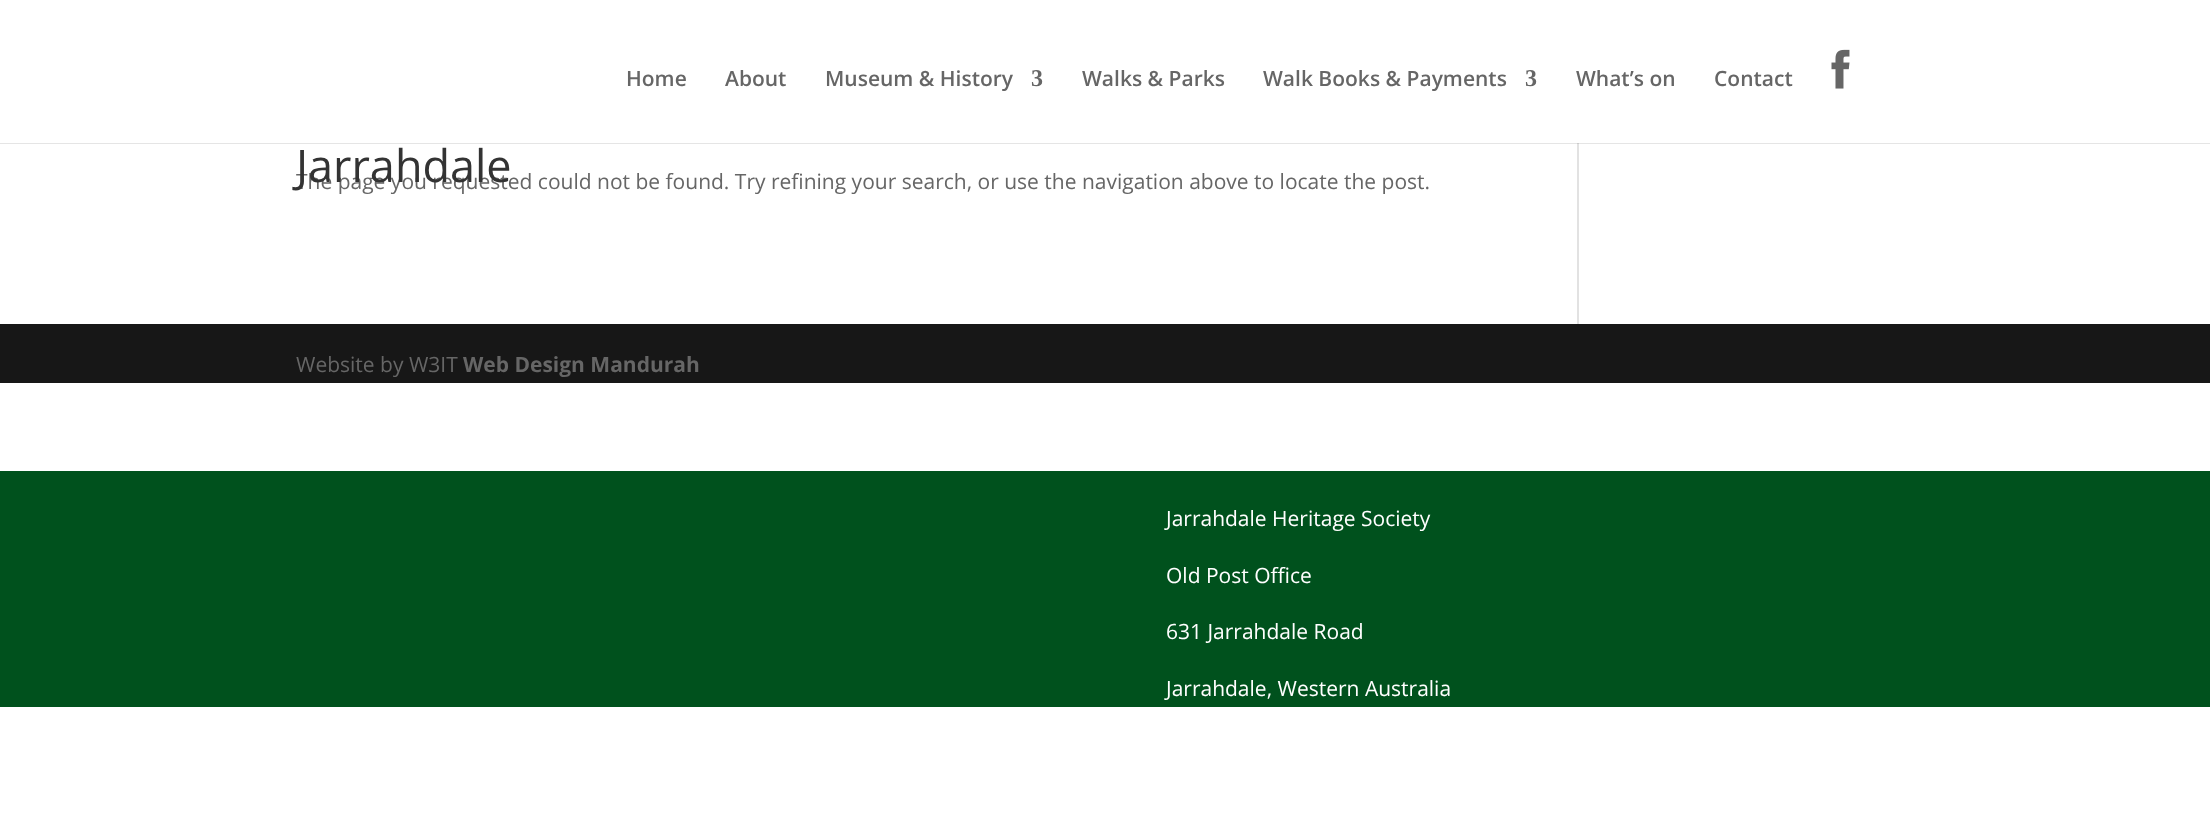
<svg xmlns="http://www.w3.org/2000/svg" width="2210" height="817">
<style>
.a{font:600 21px Open Sans;fill:#666}
.b{font:bold 24px Liberation Serif;fill:#666}
.c{font:21px Open Sans;fill:#666}
.d{font:45px Open Sans;fill:#333}
.e{font:bold 21px Open Sans;fill:#666}
.f{font:21px Open Sans;fill:#fff}
</style>
<rect width="100%" height="100%" fill="#fff"/>
<path fill="#e2e2e2" d="M1577 143h2v181H1577z"/>
<path fill="#0000001a" d="M0 143h2210v1H0z"/>
<image href="1.png" x="1831" y="49" width="19" height="40"/>
<path fill="#171717" d="M0 324h2210v59H0z"/>
<path fill="#00511d" d="M0 471h2210v236H0z"/>
<text class="a" x="626" y="86">Home</text>
<text class="a" x="725" y="86">About</text>
<text class="a" x="825" y="86">Museum &amp; History</text>
<text class="b" x="1031" y="86">3</text>
<text class="a" x="1082" y="86">Walks &amp; Parks</text>
<text class="a" x="1263" y="86">Walk Books &amp; Payments</text>
<text class="b" x="1525" y="86">3</text>
<text class="a" x="1576" y="86">What’s on</text>
<text class="a" x="1714" y="86">Contact</text>
<text class="c" x="296" y="189">The page you requested could not be found. Try refining your search, or use the navigation above to locate the post.</text>
<text class="d" x="296" y="182">Jarrahdale</text>
<text class="c" x="296" y="372">Website by W3IT</text>
<text class="e" x="463" y="372">Web Design Mandurah</text>
<text class="f" x="1166" y="526">Jarrahdale Heritage Society</text>
<text class="f" x="1166" y="583">Old Post Office</text>
<text class="f" x="1166" y="639">631 Jarrahdale Road</text>
<text class="f" x="1166" y="696">Jarrahdale, Western Australia</text>
</svg>
